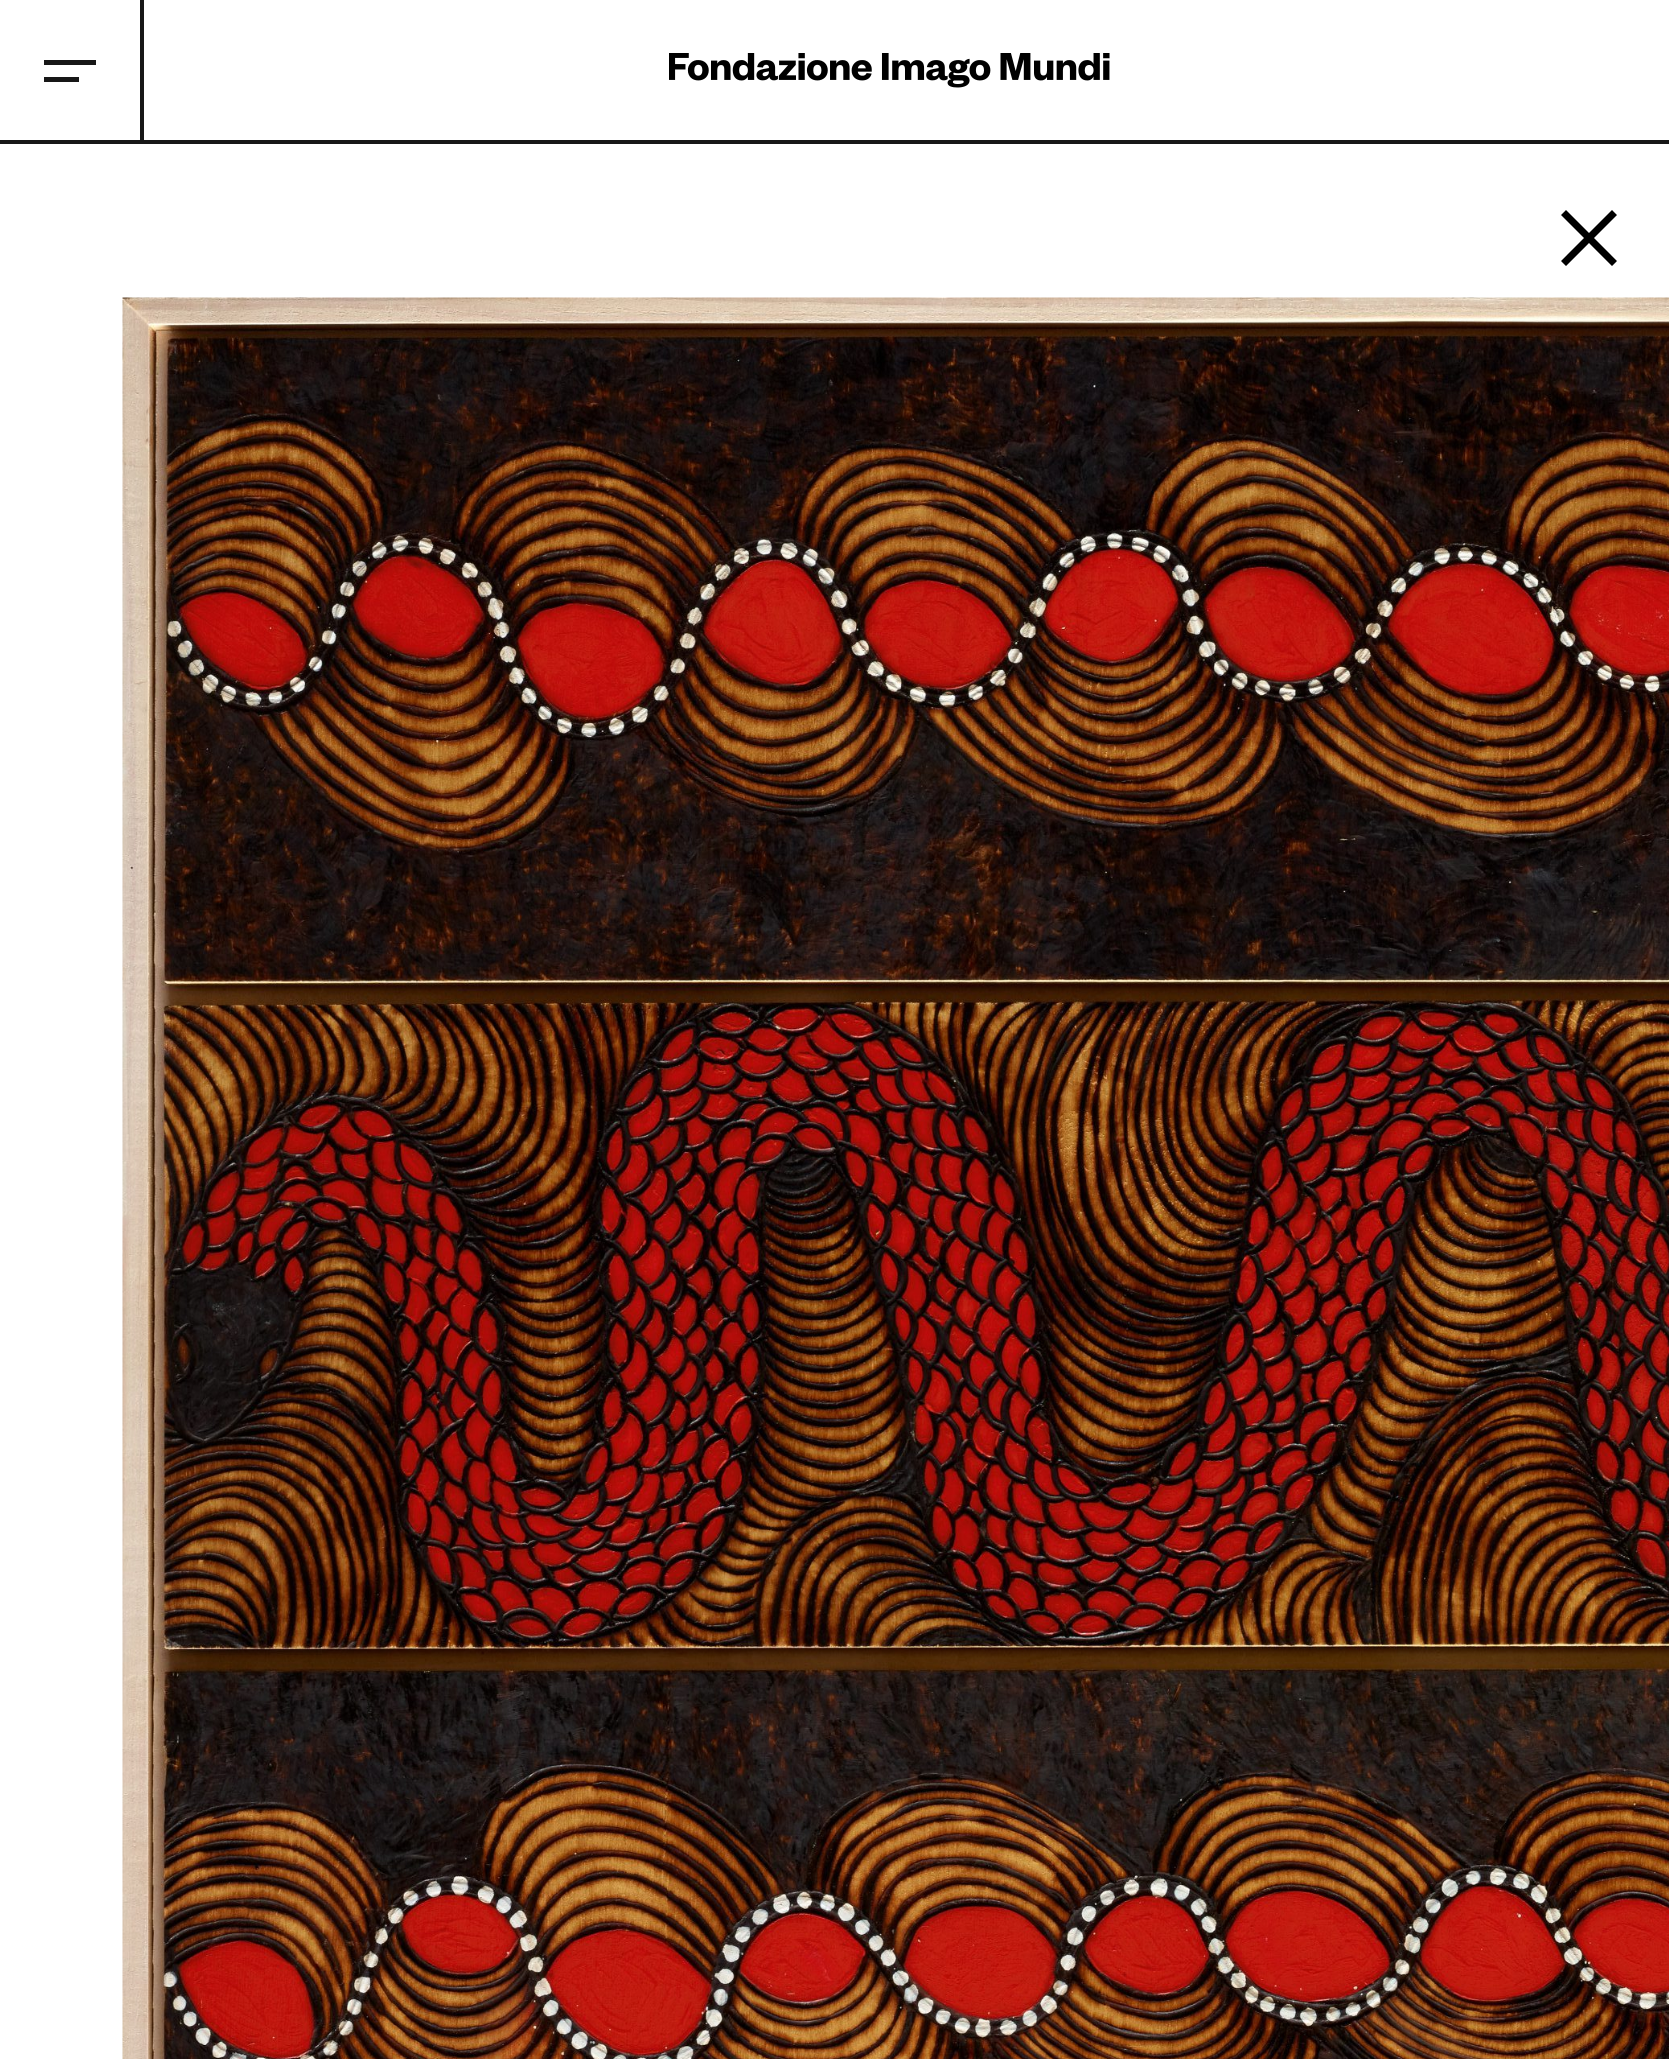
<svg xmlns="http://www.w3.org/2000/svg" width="1669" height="2059">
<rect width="100%" height="100%" fill="#fff"/>
<path fill="#171717" d="M0 140h1669v4H0z"/>
<path fill="#171717" d="M140 0h4v140H140z"/>
<path fill="#171717" d="M44 77h35v5H44z"/>
<path fill="#171717" d="M44 60h52v5H44z"/>
<image href="1.png" x="669" y="53" width="441" height="35"/>
<path fill="#000" d="M1617 261l-23-23l23-23l-5-5l-23 23l-23-23l-5 5l23 23l-23 23l5 5l23-23l23 23z"/>
<image href="2.png" x="122" y="297" width="1547" height="1762"/>
</svg>
